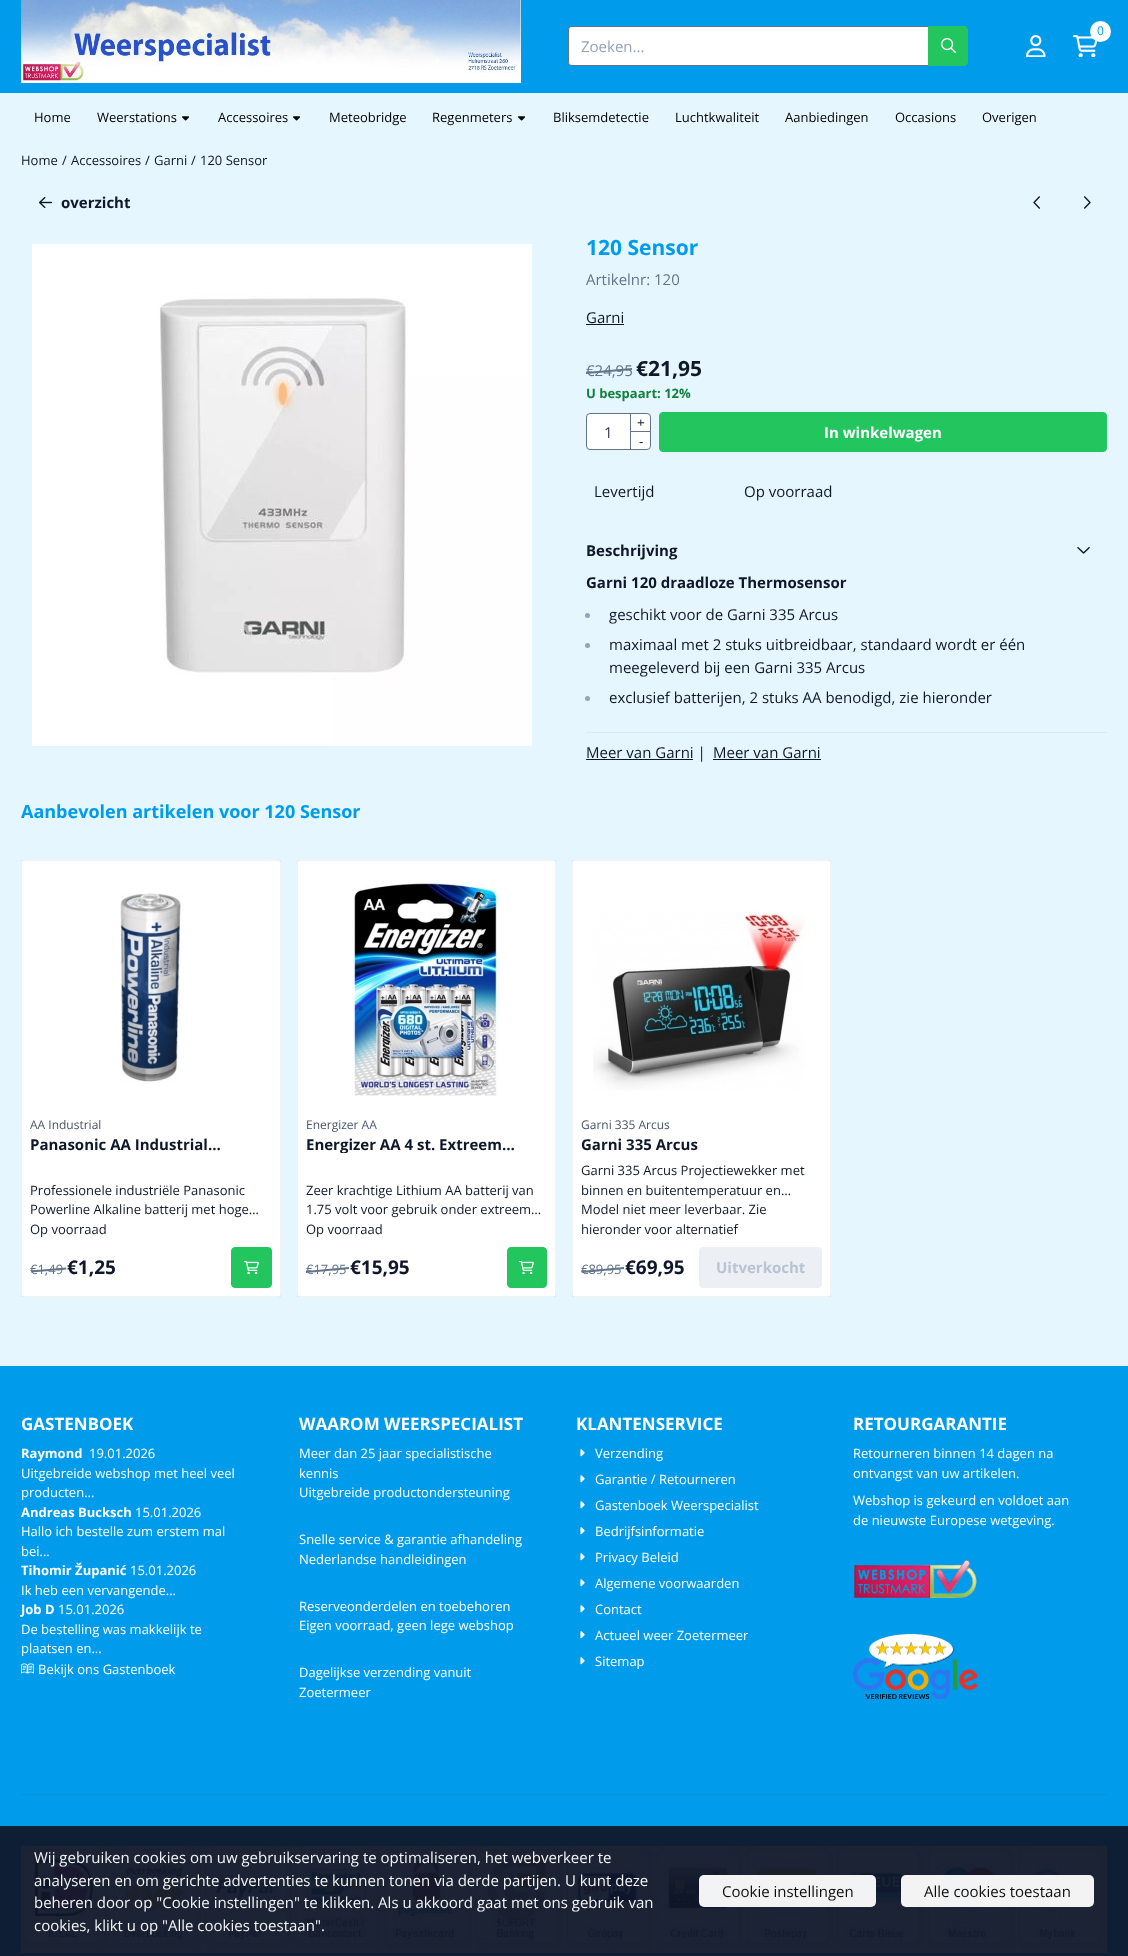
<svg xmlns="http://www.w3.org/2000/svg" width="1128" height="1956">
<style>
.a{font:12px Open Sans;fill:#009ceb}
.b{font:15px Open Sans;fill:#94a3b8}
.c{font:13px Open Sans;fill:#000}
.d{font:13px Open Sans;fill:#0f172a}
.e{font:bold 15px Open Sans;fill:#0f172a}
.f{font:bold 21px Open Sans;fill:#009ceb}
.g{font:15px Open Sans;fill:#64748b}
.h{font:15px Open Sans;fill:#0f172a}
.i{font:bold 21px Open Sans;fill:#0f172a}
.j{font:bold 13px Open Sans;fill:#15803d}
.k{font:15px Open Sans;fill:#334155}
.l{font:13px Liberation Sans;fill:#0f172a}
.m{font:bold 15px Open Sans;fill:#fff}
.n{font:bold 18px Open Sans;fill:#009ceb}
.o{font:12px Open Sans;fill:#475569}
.p{font:13px Open Sans;fill:#64748b}
.q{font:bold 19px Open Sans;fill:#0f172a}
.r{font:bold 15px Open Sans;fill:#b9c3d1}
.s{font:bold 17px Open Sans;fill:#fff}
.t{font:bold 13px Open Sans;fill:#fff}
.u{font:13px Open Sans;fill:#fff}
.v{font:15px Open Sans;fill:#f4f4f5}
.w{font:15px Open Sans;fill:#0c0c0c}
</style>
<defs>
<clipPath id="clip1"><path d="M306 1135h241v18H306z"/></clipPath>
</defs>
<rect width="100%" height="100%" fill="#e5f6ff"/>
<path fill="#009ceb" d="M0 0h1128v93H0z"/>
<image href="1.png" x="21" y="0" width="500" height="83"/>
<image href="2.png" x="1073" y="35" width="25" height="22"/>
<circle fill="#fff" cx="1100.5" cy="31.5" r="10.5"/>
<image href="3.png" x="1026" y="35" width="20" height="22"/>
<path fill="#fff" stroke="#64748b" d="M572 26.5h356.5v39h-356.5c-2 0-3.5-1.5-3.5-3.5v-32c0-2 1.5-3.5 3.5-3.5z"/>
<path fill="#22c55e" stroke="#22c55e" d="M928.5 26.5h35.5c2 0 3.5 1.5 3.5 3.5v32c0 2-1.5 3.5-3.5 3.5h-35.5z"/>
<image href="4.png" x="941" y="38" width="15" height="15"/>
<image href="5.png" x="182" y="116" width="7" height="5"/>
<image href="5.png" x="293" y="116" width="7" height="5"/>
<image href="5.png" x="518" y="116" width="7" height="5"/>
<image href="6.png" x="39" y="196" width="13" height="13"/>
<image href="7.png" x="1033" y="196" width="7" height="13"/>
<image href="8.png" x="1084" y="196" width="7" height="13"/>
<image href="9.png" x="32" y="244" width="500" height="502"/>
<path fill="#0f172a" d="M586 324h38v1H586z"/>
<path fill="#64748b" d="M586 372l46-4v2l-46 4z"/>
<rect fill="#fff" stroke="#64748b" x="586.5" y="413.5" width="64" height="36" rx="3.5"/>
<path fill="#64748b" d="M630 431h21v1H630z"/>
<path fill="#64748b" d="M630 413h1v36H630z"/>
<rect fill="#22c55e" stroke="#22c55e" x="659.5" y="412.5" width="447" height="39" rx="3.5"/>
<image href="10.png" x="1077" y="547" width="13" height="7"/>
<path fill="#e2e8f0" d="M586 732h521v1H586z"/>
<circle fill="#94a3b8" cx="587.5" cy="615.5" r="2.5"/>
<circle fill="#94a3b8" cx="587.5" cy="645.5" r="2.5"/>
<circle fill="#94a3b8" cx="587.5" cy="698.5" r="2.5"/>
<path fill="#0f172a" d="M586 759h107v1H586z"/>
<path fill="#0f172a" d="M713 759h108v1H713z"/>
<rect fill="#fff" x="21" y="860" width="260" height="437" rx="4"/>
<path fill="none" stroke="#0000000d" d="M21.5 860.5h259v436H21.5z"/>
<image href="11.png" x="120" y="893" width="61" height="189"/>
<path fill="#64748b" d="M31 1270.5l35-3l.5 2l-35.5 3z"/>
<rect fill="#22c55e" stroke="#22c55e" x="231.5" y="1247.5" width="40" height="40" rx="3.5"/>
<image href="12.png" x="244" y="1261" width="15" height="13"/>
<rect fill="#fff" x="297" y="860" width="259" height="437" rx="4"/>
<path fill="none" stroke="#0000000d" d="M297.5 860.5h258v436H297.5z"/>
<image href="13.png" x="352" y="881" width="147" height="215"/>
<path fill="#64748b" d="M306 1271l43-4v2l-43 4z"/>
<rect fill="#22c55e" stroke="#22c55e" x="507.5" y="1247.5" width="39" height="40" rx="3.5"/>
<image href="12.png" x="519" y="1261" width="15" height="13"/>
<rect fill="#fff" x="572" y="860" width="259" height="437" rx="4"/>
<path fill="none" stroke="#0000000d" d="M572.5 860.5h258v436H572.5z"/>
<image href="14.png" x="593" y="911" width="212" height="180"/>
<path fill="#64748b" d="M581 1271l43-4v2l-42 4z"/>
<rect fill="#ecf0f5" stroke="#ecf0f5" x="699.5" y="1247.5" width="122" height="40" rx="3.5"/>
<path fill="#009ceb" d="M0 1366h1128v460H0z"/>
<path fill="#0e1e34" d="M0 1826h1128v130H0z"/>
<image href="15.png" x="21" y="1663" width="13" height="11"/>
<image href="16.png" x="580" y="1449" width="5" height="8"/>
<image href="16.png" x="580" y="1475" width="5" height="8"/>
<image href="16.png" x="580" y="1501" width="5" height="8"/>
<image href="16.png" x="580" y="1527" width="5" height="8"/>
<image href="16.png" x="580" y="1553" width="5" height="8"/>
<image href="16.png" x="580" y="1579" width="5" height="8"/>
<image href="16.png" x="580" y="1605" width="5" height="8"/>
<image href="16.png" x="580" y="1631" width="5" height="8"/>
<image href="16.png" x="580" y="1657" width="5" height="8"/>
<image href="17.png" x="854" y="1560" width="123" height="39"/>
<image href="18.png" x="853" y="1634" width="125" height="65"/>
<path fill="#0094df" d="M21 1794h1086v1H21z"/>
<image href="19.png" x="21" y="1846" width="1086" height="107"/>
<rect fill="#fffffff2" x="699" y="1875" width="177" height="32" rx="5"/>
<rect fill="#fffffff2" x="901" y="1875" width="193" height="32" rx="5"/>
<text class="a" x="1097" y="35">0</text>
<text class="b" x="581" y="52">Zoeken...</text>
<text class="c" x="34" y="122">Home</text>
<text class="c" x="97" y="122">Weerstations</text>
<text class="c" x="218" y="122">Accessoires</text>
<text class="c" x="329" y="122">Meteobridge</text>
<text class="c" x="432" y="122">Regenmeters</text>
<text class="c" x="553" y="122">Bliksemdetectie</text>
<text class="c" x="675" y="122">Luchtkwaliteit</text>
<text class="c" x="785" y="122">Aanbiedingen</text>
<text class="c" x="895" y="122">Occasions</text>
<text class="c" x="982" y="122">Overigen</text>
<text class="d" x="21" y="165">Home</text>
<text class="d" x="62" y="165">/</text>
<text class="d" x="71" y="165">Accessoires</text>
<text class="d" x="145" y="165">/</text>
<text class="d" x="154" y="165">Garni</text>
<text class="d" x="191" y="165">/</text>
<text class="d" x="200" y="165">120 Sensor</text>
<text class="e" x="61" y="208">overzicht</text>
<text class="f" x="586" y="255">120 Sensor</text>
<text class="g" x="586" y="285">Artikelnr: 120</text>
<text class="h" x="586" y="323">Garni</text>
<text class="g" x="586" y="376">€24,95</text>
<text class="i" x="636" y="376">€21,95</text>
<text class="j" x="586" y="398">U bespaart: 12%</text>
<text class="k" x="604" y="438">1</text>
<text class="l" x="637" y="427">+</text>
<text class="l" x="639" y="446">-</text>
<text class="m" x="824" y="438">In winkelwagen</text>
<text class="h" x="594" y="497">Levertijd</text>
<text class="h" x="744" y="497">Op voorraad</text>
<text class="e" x="586" y="556">Beschrijving</text>
<text class="e" x="586" y="588">Garni 120 draadloze Thermosensor</text>
<text class="h" x="609" y="620">geschikt voor de Garni 335 Arcus</text>
<text class="h" x="609" y="650">maximaal met 2 stuks uitbreidbaar, standaard wordt er één</text>
<text class="h" x="609" y="673">meegeleverd bij een Garni 335 Arcus</text>
<text class="h" x="609" y="703">exclusief batterijen, 2 stuks AA benodigd, zie hieronder</text>
<text class="h" x="586" y="758">Meer van Garni |</text>
<text class="h" x="713" y="758">Meer van Garni</text>
<text class="n" x="21" y="818">Aanbevolen artikelen voor 120 Sensor</text>
<text class="o" x="30" y="1129">AA Industrial</text>
<text class="e" x="30" y="1150">Panasonic AA Industrial…</text>
<text class="d" x="30" y="1195">Professionele industriële Panasonic</text>
<text class="d" x="30" y="1214">Powerline Alkaline batterij met hoge…</text>
<text class="d" x="30" y="1234">Op voorraad</text>
<text class="p" x="30" y="1274">€1,49</text>
<text class="q" x="67" y="1274">€1,25</text>
<text class="o" x="306" y="1129">Energizer AA</text>
<g clip-path="url(#clip1)">
<text class="e" x="306" y="1150">Energizer AA 4 st. Extreem…</text>
</g>
<text class="d" x="306" y="1195">Zeer krachtige Lithium AA batterij van</text>
<text class="d" x="306" y="1214">1.75 volt voor gebruik onder extreem…</text>
<text class="d" x="306" y="1234">Op voorraad</text>
<text class="p" x="306" y="1274">€17,95</text>
<text class="q" x="350" y="1274">€15,95</text>
<text class="o" x="581" y="1129">Garni 335 Arcus</text>
<text class="e" x="581" y="1150">Garni 335 Arcus</text>
<text class="d" x="581" y="1175">Garni 335 Arcus Projectiewekker met</text>
<text class="d" x="581" y="1195">binnen en buitentemperatuur en…</text>
<text class="d" x="581" y="1214">Model niet meer leverbaar. Zie</text>
<text class="d" x="581" y="1234">hieronder voor alternatief</text>
<text class="p" x="581" y="1274">€89,95</text>
<text class="q" x="625" y="1274">€69,95</text>
<text class="r" x="716" y="1273">Uitverkocht</text>
<text class="s" x="21" y="1430">GASTENBOEK</text>
<text class="t" x="21" y="1458">Raymond</text>
<text class="u" x="89" y="1458">19.01.2026</text>
<text class="u" x="21" y="1478">Uitgebreide webshop met heel veel</text>
<text class="u" x="21" y="1497">producten...</text>
<text class="t" x="21" y="1517">Andreas Bucksch</text>
<text class="u" x="135" y="1517">15.01.2026</text>
<text class="u" x="21" y="1536">Hallo ich bestelle zum erstem mal</text>
<text class="u" x="21" y="1556">bei...</text>
<text class="t" x="21" y="1575">Tihomir Županić</text>
<text class="u" x="130" y="1575">15.01.2026</text>
<text class="u" x="21" y="1595">Ik heb een vervangende...</text>
<text class="t" x="21" y="1614">Job D</text>
<text class="u" x="58" y="1614">15.01.2026</text>
<text class="u" x="21" y="1634">De bestelling was makkelijk te</text>
<text class="u" x="21" y="1653">plaatsen en...</text>
<text class="u" x="38" y="1674">Bekijk ons Gastenboek</text>
<text class="s" x="299" y="1430">WAAROM WEERSPECIALIST</text>
<text class="u" x="299" y="1458">Meer dan 25 jaar specialistische</text>
<text class="u" x="299" y="1478">kennis</text>
<text class="u" x="299" y="1497">Uitgebreide productondersteuning</text>
<text class="u" x="299" y="1544">Snelle service &amp; garantie afhandeling</text>
<text class="u" x="299" y="1564">Nederlandse handleidingen</text>
<text class="u" x="299" y="1611">Reserveonderdelen en toebehoren</text>
<text class="u" x="299" y="1630">Eigen voorraad, geen lege webshop</text>
<text class="u" x="299" y="1677">Dagelijkse verzending vanuit</text>
<text class="u" x="299" y="1697">Zoetermeer</text>
<text class="s" x="576" y="1430">KLANTENSERVICE</text>
<text class="u" x="595" y="1458">Verzending</text>
<text class="u" x="595" y="1484">Garantie / Retourneren</text>
<text class="u" x="595" y="1510">Gastenboek Weerspecialist</text>
<text class="u" x="595" y="1536">Bedrijfsinformatie</text>
<text class="u" x="595" y="1562">Privacy Beleid</text>
<text class="u" x="595" y="1588">Algemene voorwaarden</text>
<text class="u" x="595" y="1614">Contact</text>
<text class="u" x="595" y="1640">Actueel weer Zoetermeer</text>
<text class="u" x="595" y="1666">Sitemap</text>
<text class="s" x="853" y="1430">RETOURGARANTIE</text>
<text class="u" x="853" y="1458">Retourneren binnen 14 dagen na</text>
<text class="u" x="853" y="1478">ontvangst van uw artikelen.</text>
<text class="u" x="853" y="1505">Webshop is gekeurd en voldoet aan</text>
<text class="u" x="853" y="1525">de nieuwste Europese wetgeving.</text>
<text class="v" x="34" y="1863">Wij gebruiken cookies om uw gebruikservaring te optimaliseren, het webverkeer te</text>
<text class="v" x="34" y="1886">analyseren en om gerichte advertenties te kunnen tonen via derde partijen. U kunt deze</text>
<text class="v" x="34" y="1908">beheren door op "Cookie instellingen" te klikken. Als u akkoord gaat met ons gebruik van</text>
<text class="v" x="34" y="1931">cookies, klikt u op "Alle cookies toestaan".</text>
<text class="w" x="722" y="1897">Cookie instellingen</text>
<text class="w" x="924" y="1897">Alle cookies toestaan</text>
</svg>
